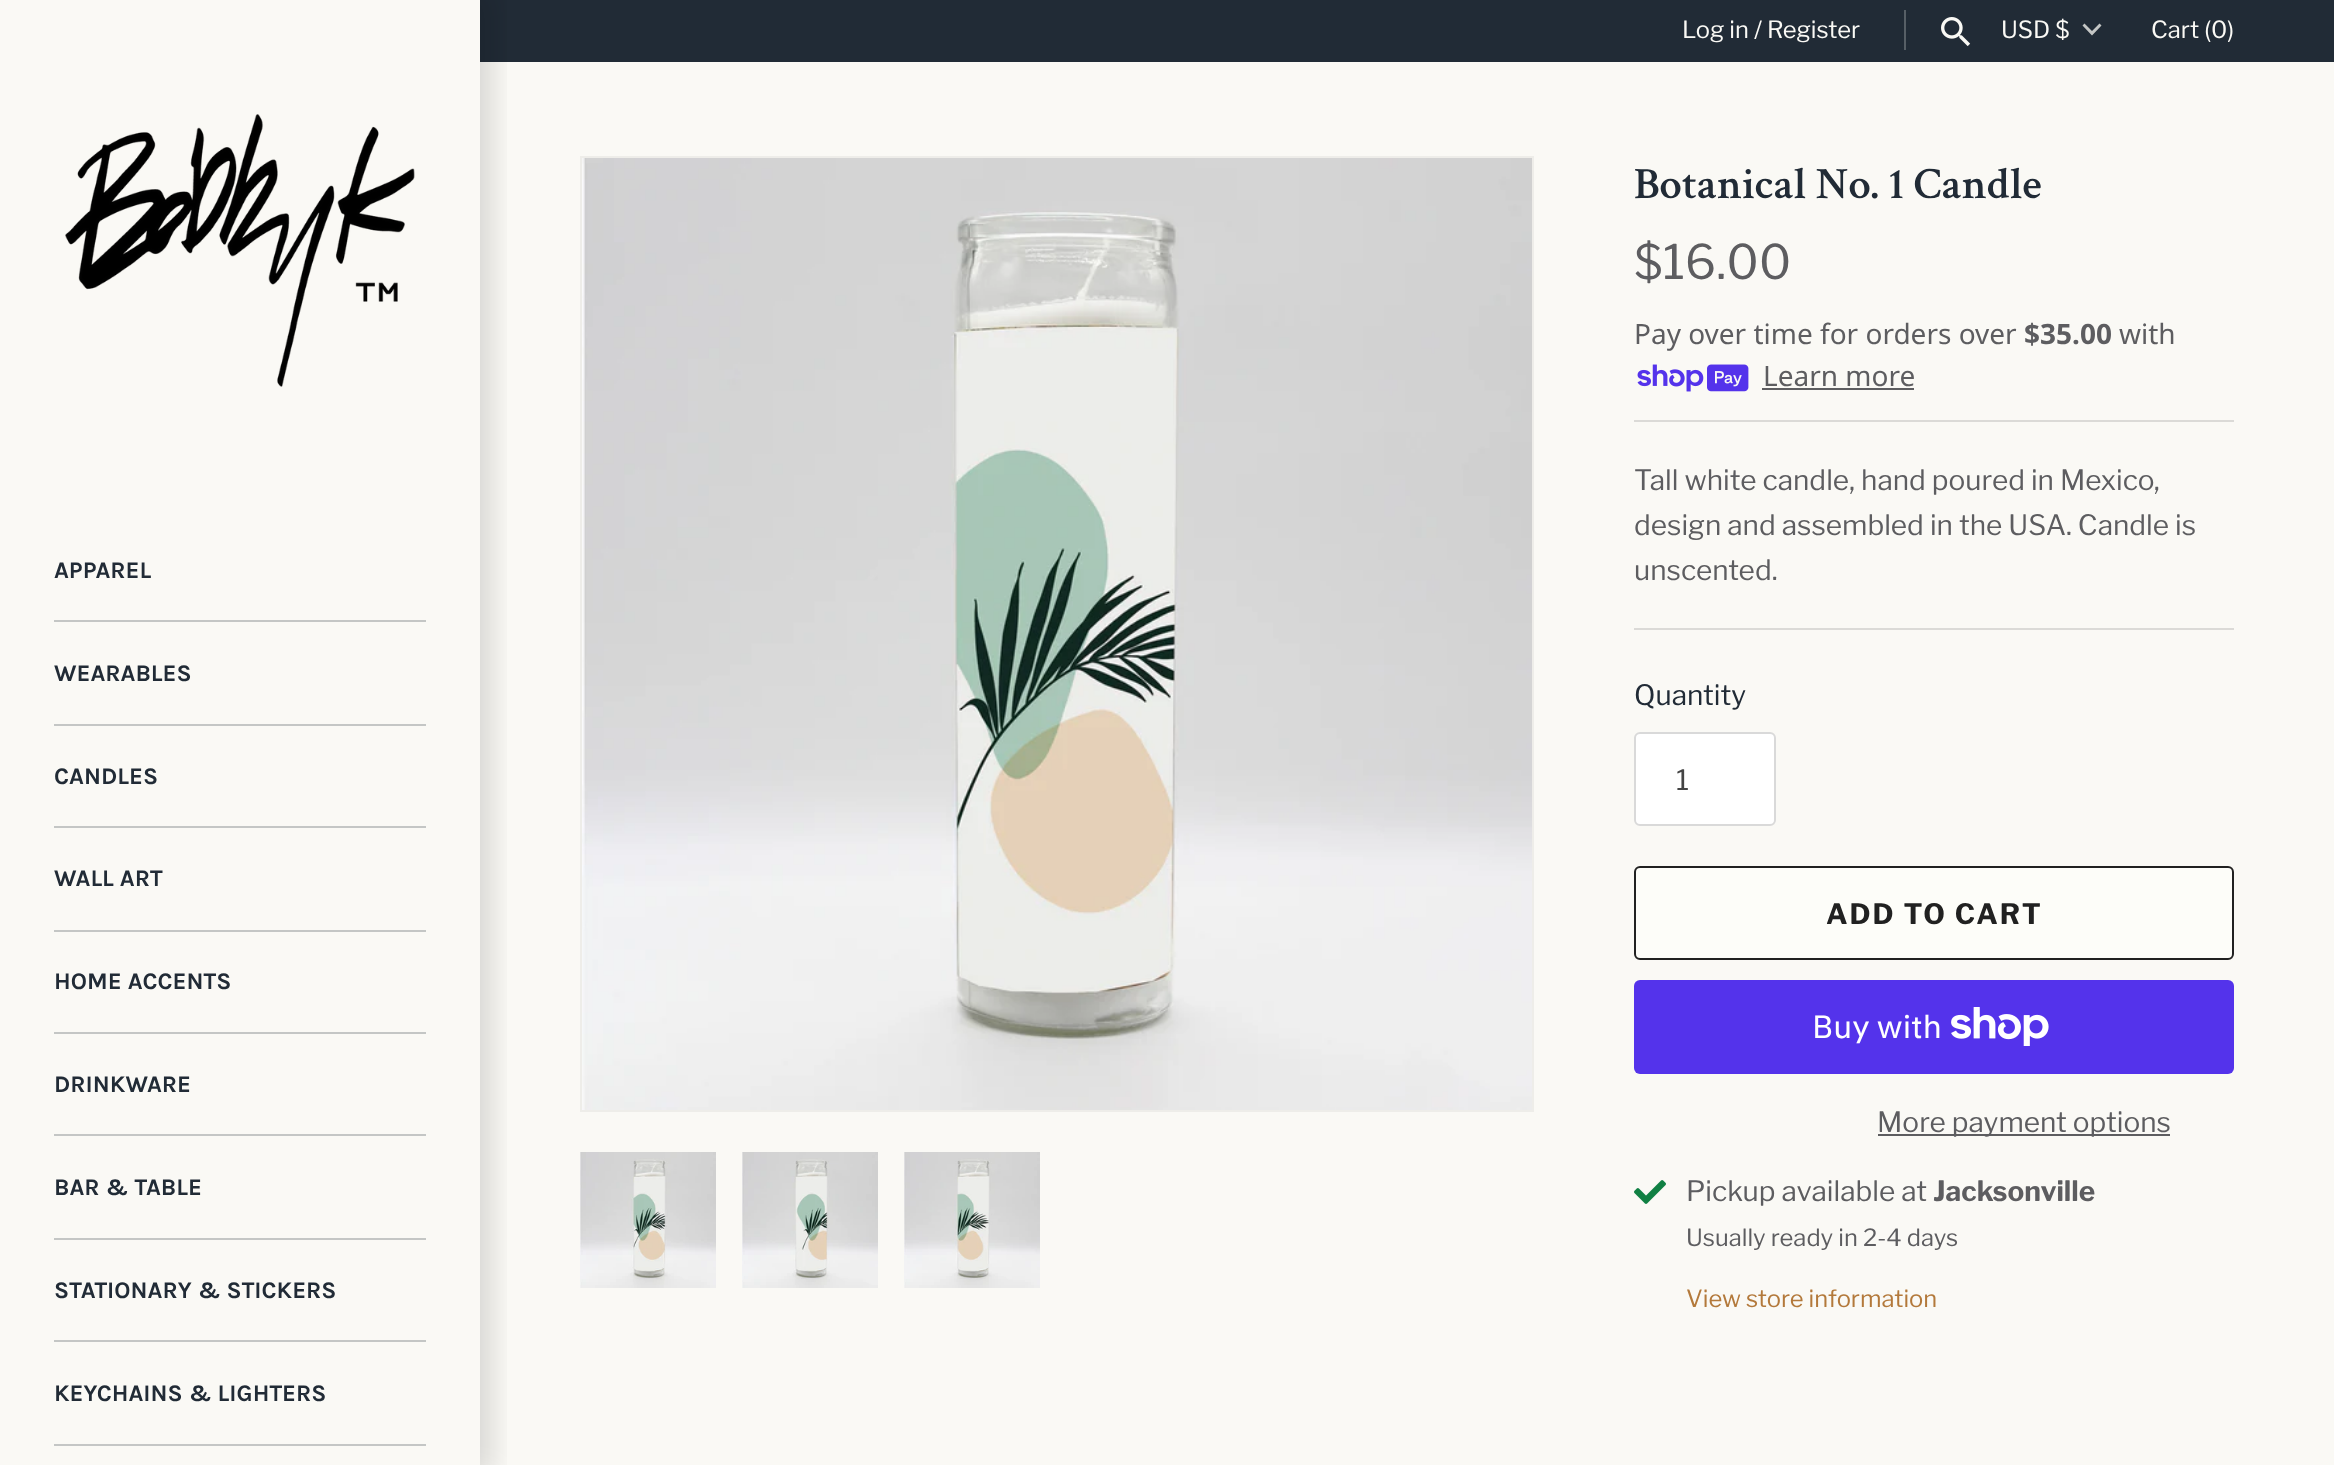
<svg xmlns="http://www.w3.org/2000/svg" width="2334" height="1465">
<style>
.a{font:23.75px Libre Franklin;fill:#faf9f5}
.b{font:bold 23.75px Karla;fill:#212b36}
.c{font:600 44.75px Crimson Text;fill:#212b36}
.d{font:47.5px Libre Franklin;fill:#5d5d60}
.e{font:28px Noto Sans;fill:#5d5d60}
.f{font:bold 28px Noto Sans;fill:#5d5d60}
.g{font:28px Libre Franklin;fill:#5d5d60}
.h{font:28px Libre Franklin;fill:#212b36}
.i{font:28px Libre Franklin;fill:#444}
.j{font:bold 28px Libre Franklin;letter-spacing:2px;fill:#212121}
.k{font:32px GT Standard;fill:#fff}
.l{font:bold 28px Libre Franklin;fill:#5d5d60}
.m{font:23.75px Libre Franklin;fill:#5d5d60}
.n{font:23.75px Libre Franklin;fill:#b3793b}
</style>
<defs>
<clipPath id="clip1"><path d="M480 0h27v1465H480z"/></clipPath>
</defs>
<rect width="100%" height="100%" fill="#faf9f5"/>
<path fill="#212b36" d="M480 0h1854v62H480z"/>
<path fill="#575f66" d="M1904 10h2v40H1904z"/>
<image href="1.png" x="1941" y="17" width="30" height="30"/>
<path fill="#c4c6c5" d="M2084.5 23.5l7.5 7.5l7.5-7.5l2 2l-9.5 10l-9.5-10z"/>
<g clip-path="url(#clip1)">
<path fill="#00000026" filter="blur(15px)" d="M-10 -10h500v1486H-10z"/>
</g>
<image href="2.png" x="65" y="114" width="350" height="273"/>
<path fill="#c4c6c5" d="M54 620h372v2H54z"/>
<path fill="#c4c6c5" d="M54 724h372v2H54z"/>
<path fill="#c4c6c5" d="M54 826h372v2H54z"/>
<path fill="#c4c6c5" d="M54 930h372v2H54z"/>
<path fill="#c4c6c5" d="M54 1032h372v2H54z"/>
<path fill="#c4c6c5" d="M54 1134h372v2H54z"/>
<path fill="#c4c6c5" d="M54 1238h372v2H54z"/>
<path fill="#c4c6c5" d="M54 1340h372v2H54z"/>
<path fill="#c4c6c5" d="M54 1444h372v2H54z"/>
<path fill="none" stroke="#eeede9" stroke-width="2" d="M581 157h952v954H581z"/>
<image href="3.png" x="582" y="158" width="950" height="952"/>
<image href="4.png" x="580" y="1152" width="136" height="136"/>
<image href="5.png" x="742" y="1152" width="136" height="136"/>
<image href="6.png" x="904" y="1152" width="136" height="136"/>
<image href="7.png" x="1637" y="364" width="112" height="28"/>
<path fill="#5d5d60" d="M1762 388h152v2H1762z"/>
<path fill="#dbdad7" d="M1634 420h600v2H1634z"/>
<path fill="#dbdad7" d="M1634 628h600v2H1634z"/>
<rect fill="#fff" stroke="#d9d9d9" stroke-width="2" x="1635" y="733" width="140" height="92" rx="5"/>
<rect fill="#fdfdf9" stroke="#212121" stroke-width="2" x="1635" y="867" width="598" height="92" rx="5"/>
<rect fill="#5433eb" x="1634" y="980" width="600" height="94" rx="6"/>
<image href="8.png" x="1951" y="1007" width="98" height="39"/>
<path fill="#5d5d60" d="M1878 1134h292v2H1878z"/>
<image href="9.png" x="1634" y="1180" width="32" height="24"/>
<text class="a" x="1682" y="38">Log in / Register</text>
<text class="a" x="2001" y="38">USD $</text>
<text class="a" x="2151" y="38">Cart (0)</text>
<text class="b" x="54" y="578">APPAREL</text>
<text class="b" x="54" y="681">WEARABLES</text>
<text class="b" x="54" y="784">CANDLES</text>
<text class="b" x="54" y="886">WALL ART</text>
<text class="b" x="54" y="989">HOME ACCENTS</text>
<text class="b" x="54" y="1092">DRINKWARE</text>
<text class="b" x="54" y="1195">BAR &amp; TABLE</text>
<text class="b" x="54" y="1298">STATIONARY &amp; STICKERS</text>
<text class="b" x="54" y="1401">KEYCHAINS &amp; LIGHTERS</text>
<text class="c" x="1634" y="198">Botanical No. 1 Candle</text>
<text class="d" x="1634" y="279">$16.00</text>
<text class="e" x="1634" y="344">Pay over time for orders over</text>
<text class="f" x="2024" y="344">$35.00</text>
<text class="e" x="2119" y="344">with</text>
<text class="e" x="1763" y="386">Learn more</text>
<text class="g" x="1634" y="490">Tall white candle, hand poured in Mexico,</text>
<text class="g" x="1634" y="535">design and assembled in the USA. Candle is</text>
<text class="g" x="1634" y="580">unscented.</text>
<text class="h" x="1634" y="705">Quantity</text>
<text class="i" x="1676" y="790">1</text>
<text class="j" x="1826" y="924">ADD TO CART</text>
<text class="k" x="1812" y="1038">Buy with</text>
<text class="g" x="1877" y="1132">More payment options</text>
<text class="g" x="1686" y="1201">Pickup available at</text>
<text class="l" x="1933" y="1201">Jacksonville</text>
<text class="m" x="1686" y="1246">Usually ready in 2-4 days</text>
<text class="n" x="1686" y="1307">View store information</text>
</svg>
